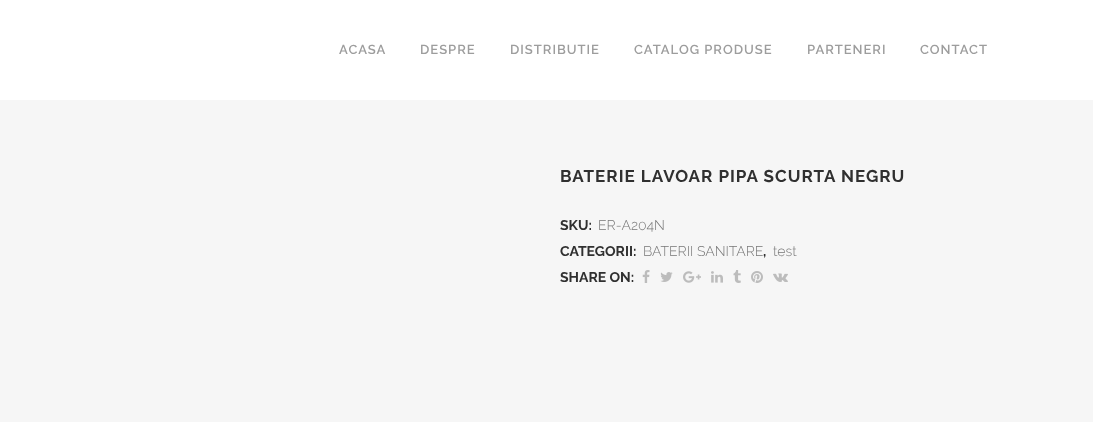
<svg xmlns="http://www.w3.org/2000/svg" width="1093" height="422">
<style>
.a{font:600 13px Raleway;letter-spacing:1px;fill:#9d9d9d}
.b{font:bold 17px Raleway;letter-spacing:1px;fill:#303030}
.c{font:bold 14px Raleway;fill:#303030}
.d{font:300 14px Raleway;fill:#777}
</style>
<rect width="100%" height="100%" fill="#f6f6f6"/>
<path fill="#fff" d="M0 0h1093v100H0z"/>
<image href="1.png" x="642" y="270" width="8" height="13"/>
<image href="2.png" x="660" y="272" width="13" height="10"/>
<image href="3.png" x="683" y="271" width="18" height="12"/>
<image href="4.png" x="711" y="271" width="12" height="12"/>
<image href="5.png" x="733" y="270" width="8" height="13"/>
<image href="6.png" x="751" y="271" width="12" height="12"/>
<image href="7.png" x="773" y="273" width="15" height="9"/>
<text class="a" x="339" y="54">ACASA</text>
<text class="a" x="420" y="54">DESPRE</text>
<text class="a" x="510" y="54">DISTRIBUTIE</text>
<text class="a" x="634" y="54">CATALOG PRODUSE</text>
<text class="a" x="807" y="54">PARTENERI</text>
<text class="a" x="920" y="54">CONTACT</text>
<text class="b" x="560" y="182">BATERIE LAVOAR PIPA SCURTA NEGRU</text>
<text class="c" x="560" y="230">SKU:</text>
<text class="d" x="598" y="230">ER-A204N</text>
<text class="c" x="560" y="256">CATEGORII:</text>
<text class="d" x="643" y="256">BATERII SANITARE</text>
<text class="c" x="763" y="256">,</text>
<text class="d" x="773" y="256">test</text>
<text class="c" x="560" y="282">SHARE ON:</text>
</svg>
